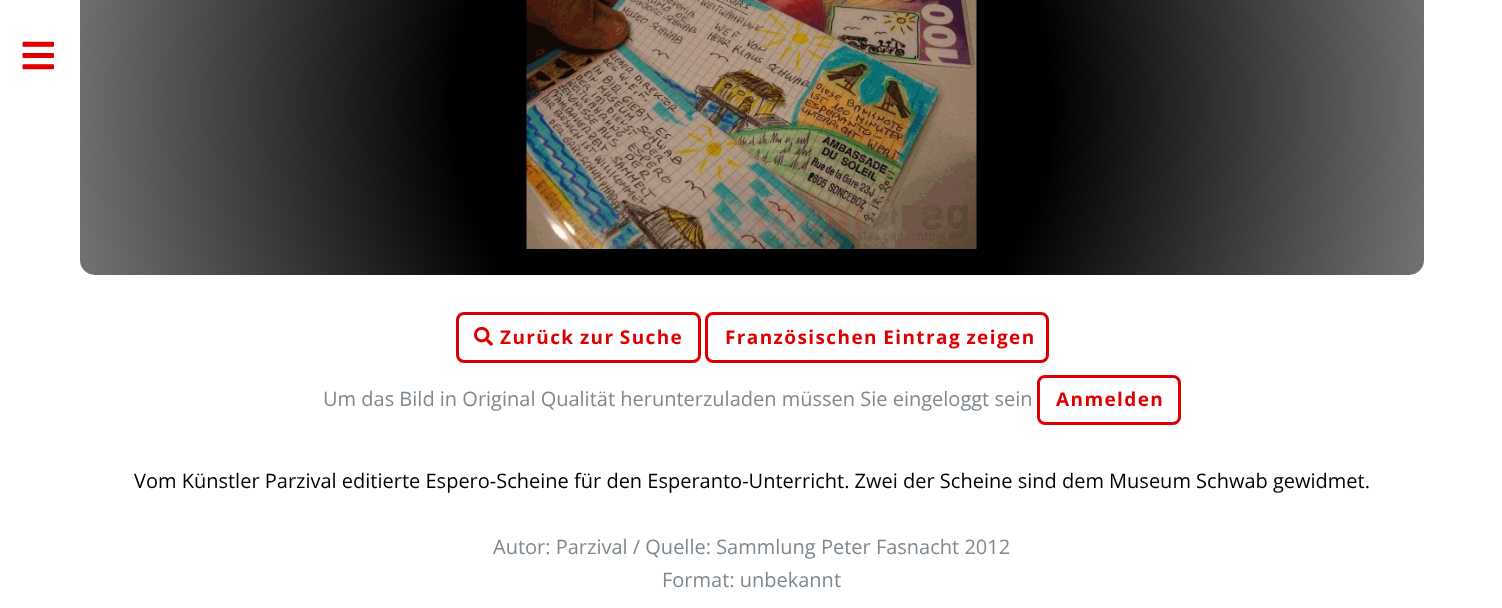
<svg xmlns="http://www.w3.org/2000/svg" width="1502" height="608">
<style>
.a{font:bold 19px Open Sans;letter-spacing:1.4px;fill:#de0000}
.b{font:20px Open Sans;fill:#7f888f}
.c{font:20px Open Sans;fill:#000}
</style>
<defs>
<radialGradient id="g1" gradientUnits="userSpaceOnUse" cx="752" cy="104" r="693"><stop offset="0.43" stop-color="#000"/><stop offset="1" stop-color="#737373"/></radialGradient>
</defs>
<rect width="100%" height="100%" fill="#fff"/>
<image href="1.png" x="22" y="41" width="32" height="29"/>
<rect fill="url(#g1)" x="80" y="-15" width="1344" height="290" rx="15"/>
<image href="2.png" x="526" y="0" width="451" height="249"/>
<rect fill="none" stroke="#de0000" stroke-width="3" x="457.5" y="313.5" width="242" height="48" rx="6.5"/>
<image href="3.png" x="474" y="326" width="19" height="20"/>
<rect fill="none" stroke="#de0000" stroke-width="3" x="706.5" y="313.5" width="341" height="48" rx="6.5"/>
<rect fill="none" stroke="#de0000" stroke-width="3" x="1038.5" y="376.5" width="141" height="47" rx="6.5"/>
<text class="a" x="500" y="344" word-spacing="-1">Zurück zur Suche</text>
<text class="a" x="725" y="344" word-spacing="-1">Französischen Eintrag zeigen</text>
<text class="b" x="323" y="406">Um das Bild in Original Qualität herunterzuladen müssen Sie eingeloggt sein</text>
<text class="a" x="1056" y="406">Anmelden</text>
<text class="c" x="134" y="488">Vom Künstler Parzival editierte Espero-Scheine für den Esperanto-Unterricht. Zwei der Scheine sind dem Museum Schwab gewidmet.</text>
<text class="b" x="493" y="554">Autor: Parzival / Quelle: Sammlung Peter Fasnacht 2012</text>
<text class="b" x="662" y="587">Format: unbekannt</text>
</svg>
